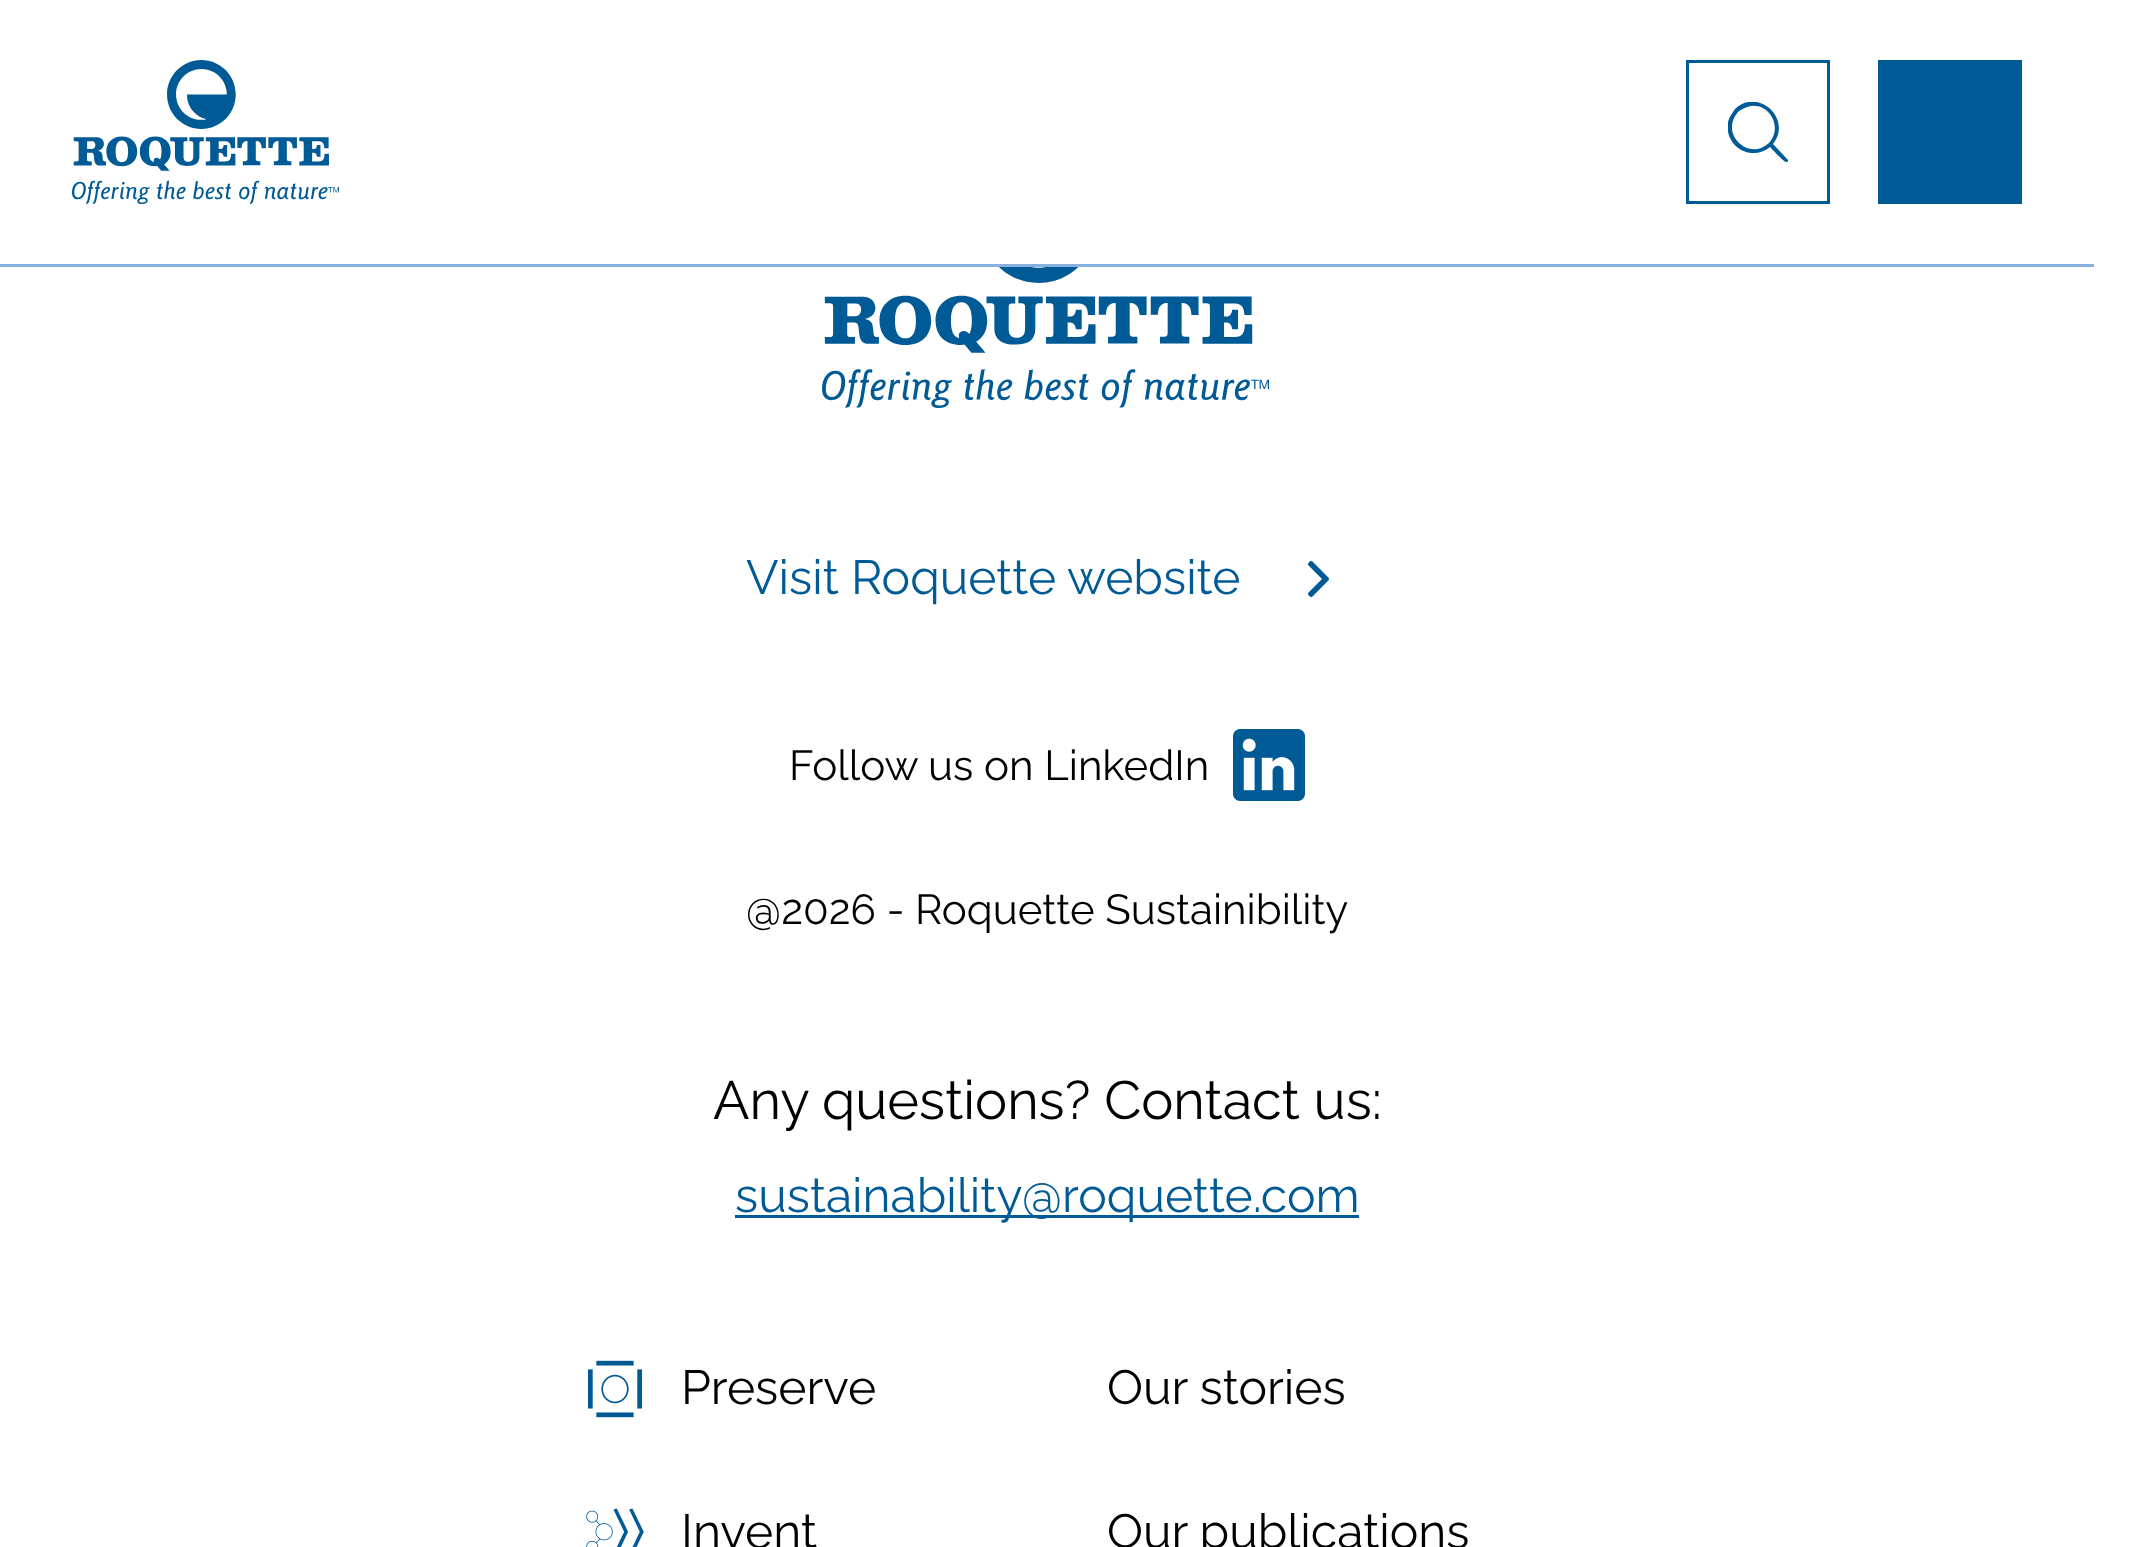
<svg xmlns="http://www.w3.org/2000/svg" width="2138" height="1547">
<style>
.a{font:48px Raleway;fill:#005a96}
.b{font:42px Raleway;fill:#000}
.c{font:54px Raleway;fill:#000}
.d{font:48px Raleway;fill:#000}
</style>
<defs>
<clipPath id="clip1"><path d="M1728 102h60v60H1728z"/></clipPath>
</defs>
<rect width="100%" height="100%" fill="#fff"/>
<path fill="#86b0dd" d="M0 264h2094v3H0z"/>
<image href="1.png" x="72" y="60" width="267" height="144"/>
<path fill="none" stroke="#005a96" stroke-width="3" d="M1687.5 61.5h141v141H1687.5z"/>
<g clip-path="url(#clip1)">
<path fill="#005a96" fill-rule="evenodd" d="M1769 143c-20 19-50-9-31-31c2-2 6-4 9-5c21-7 37 20 22 36zm18 16l-14-15c20-25-15-57-38-35c-3 4-6 9-7 13c-4 25 24 40 42 25c2 2 14 15 16 15c2 0 3-2 1-3z"/>
</g>
<path fill="#005a96" d="M1878 60h144v144H1878z"/>
<image href="2.png" x="822" y="267" width="447" height="141"/>
<image href="3.png" x="1308" y="561" width="21" height="36"/>
<image href="4.png" x="1233" y="729" width="72" height="72"/>
<path fill="#005a96" d="M735 1215h624v3H735z"/>
<image href="5.png" x="588" y="1360" width="54" height="58"/>
<image href="6.png" x="586" y="1508" width="58" height="39"/>
<text class="a" x="746" y="594">Visit Roquette website</text>
<text class="b" x="789" y="780">Follow us on LinkedIn</text>
<text class="b" x="746" y="924">@2026 - Roquette Sustainibility</text>
<text class="c" x="713" y="1119">Any questions? Contact us:</text>
<text class="a" x="735" y="1212">sustainability@roquette.com</text>
<text class="d" x="681" y="1404">Preserve</text>
<text class="d" x="681" y="1548">Invent</text>
<text class="d" x="1107" y="1404">Our stories</text>
<text class="d" x="1107" y="1548">Our publications</text>
</svg>
